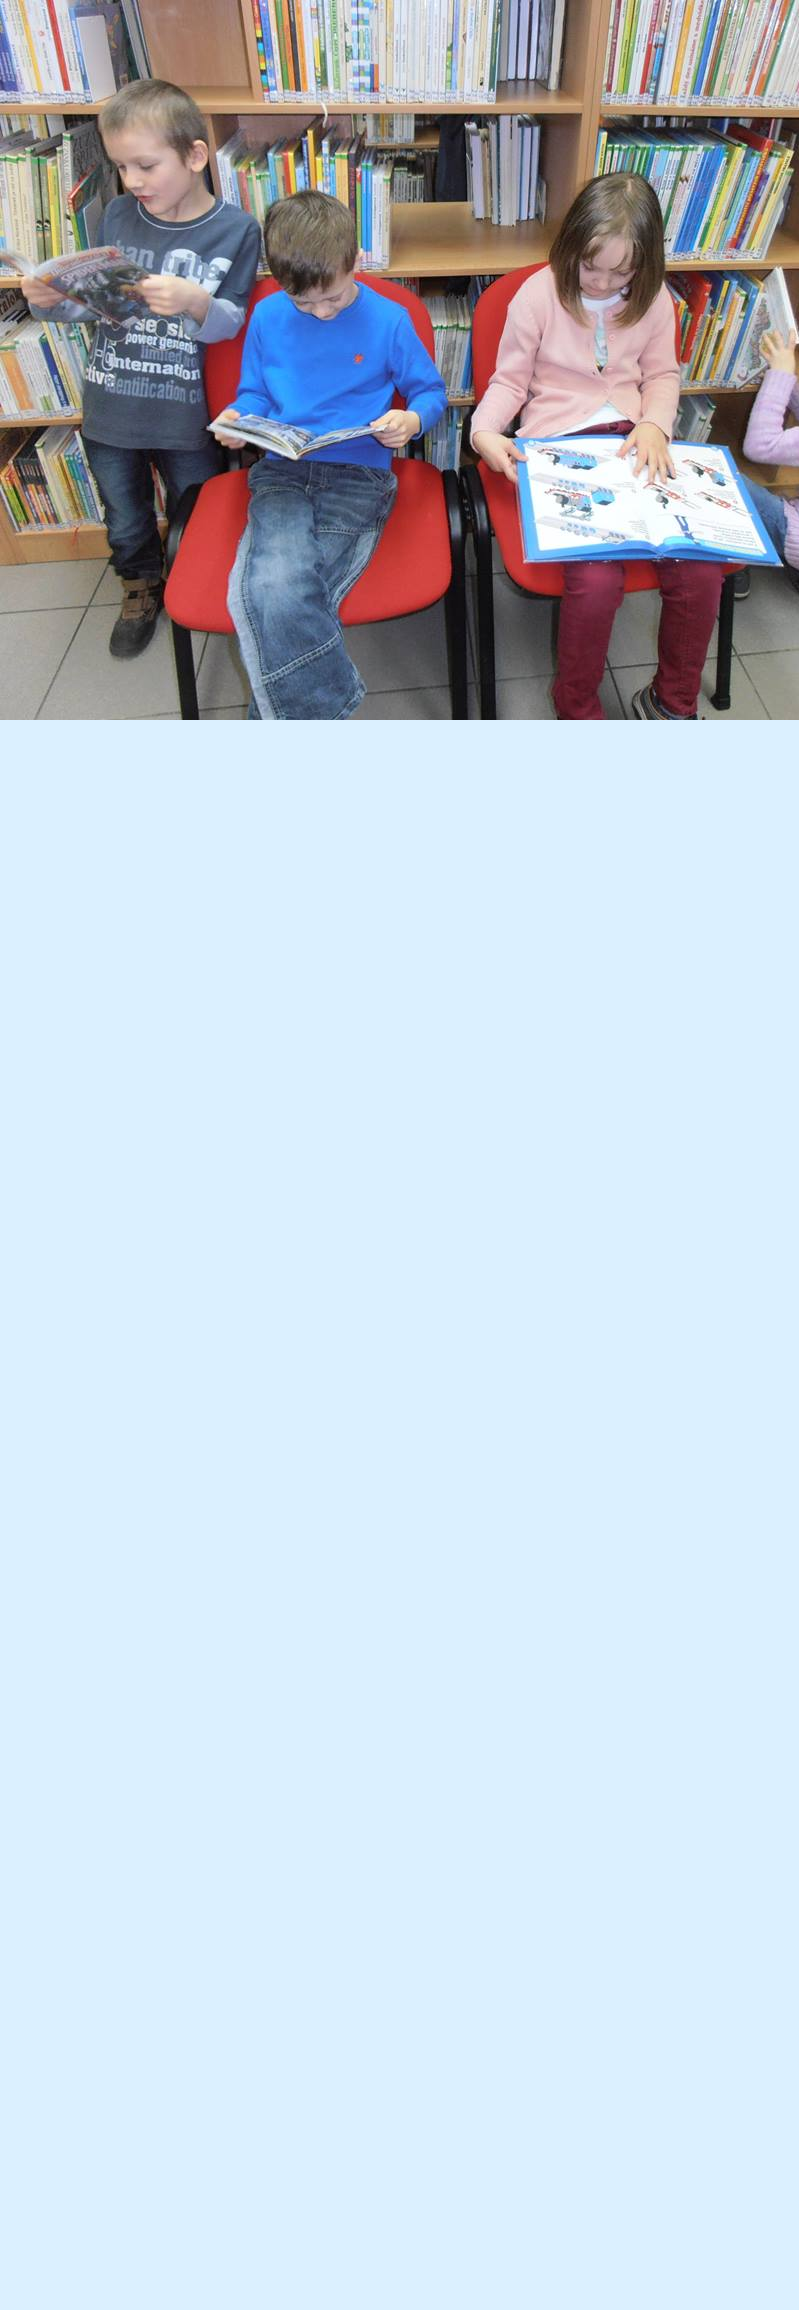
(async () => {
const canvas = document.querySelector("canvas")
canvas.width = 799
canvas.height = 2310
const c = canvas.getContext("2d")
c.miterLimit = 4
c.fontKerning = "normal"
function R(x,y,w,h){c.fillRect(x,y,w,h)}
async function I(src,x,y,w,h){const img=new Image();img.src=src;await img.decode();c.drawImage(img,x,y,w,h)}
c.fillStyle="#dbf0ff"
R(0,0,799,2310)
await I("1.png",0,0,799,720)
})()
